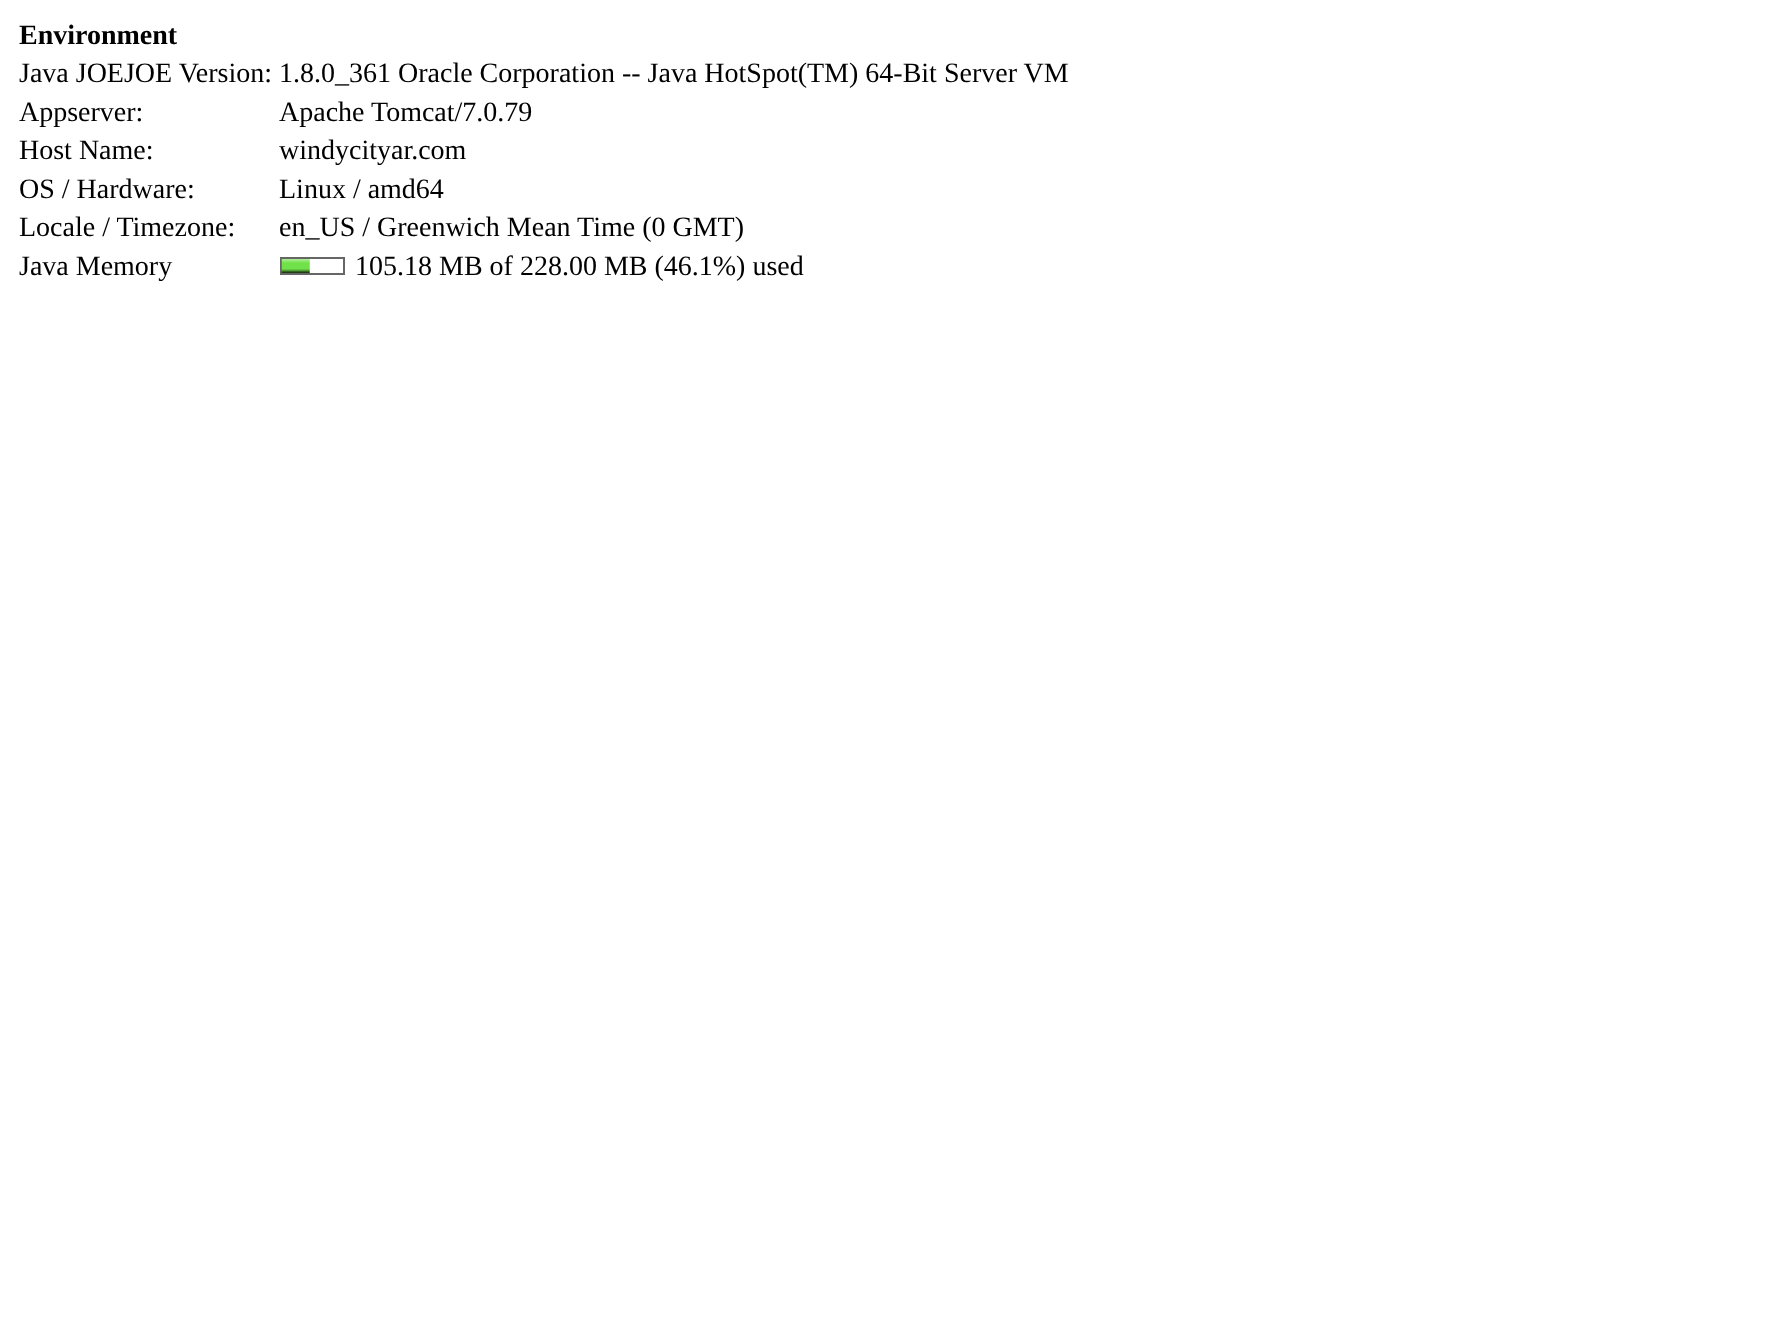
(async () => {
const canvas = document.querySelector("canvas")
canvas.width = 1766
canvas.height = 1322
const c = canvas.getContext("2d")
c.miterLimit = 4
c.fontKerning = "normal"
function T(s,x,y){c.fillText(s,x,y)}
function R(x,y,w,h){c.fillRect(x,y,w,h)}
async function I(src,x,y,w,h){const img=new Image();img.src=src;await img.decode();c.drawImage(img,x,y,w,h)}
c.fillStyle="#fff"
R(0,0,1766,1322)
c.font="bold 28px Liberation Serif"
c.fillStyle="#000"
T("Environment",19,44)
c.font="28px Liberation Serif"
T("Java JOEJOE Version: 1.8.0_361 Oracle Corporation -- Java HotSpot(TM) 64-Bit Server VM",19,82)
T("Appserver:",19,121)
T("Apache Tomcat/7.0.79",279,121)
T("Host Name:",19,159)
T("windycityar.com",279,159)
T("OS / Hardware:",19,198)
T("Linux / amd64",279,198)
T("Locale / Timezone:",19,236)
T("en_US / Greenwich Mean Time (0 GMT)",279,236)
T("Java Memory",19,275)
c.strokeStyle="#666"
c.lineWidth=2
c.strokeRect(281,258,63,16)
await I("1.png",281,259,29,14)
T("105.18 MB of 228.00 MB (46.1%) used",355,275)
})()
